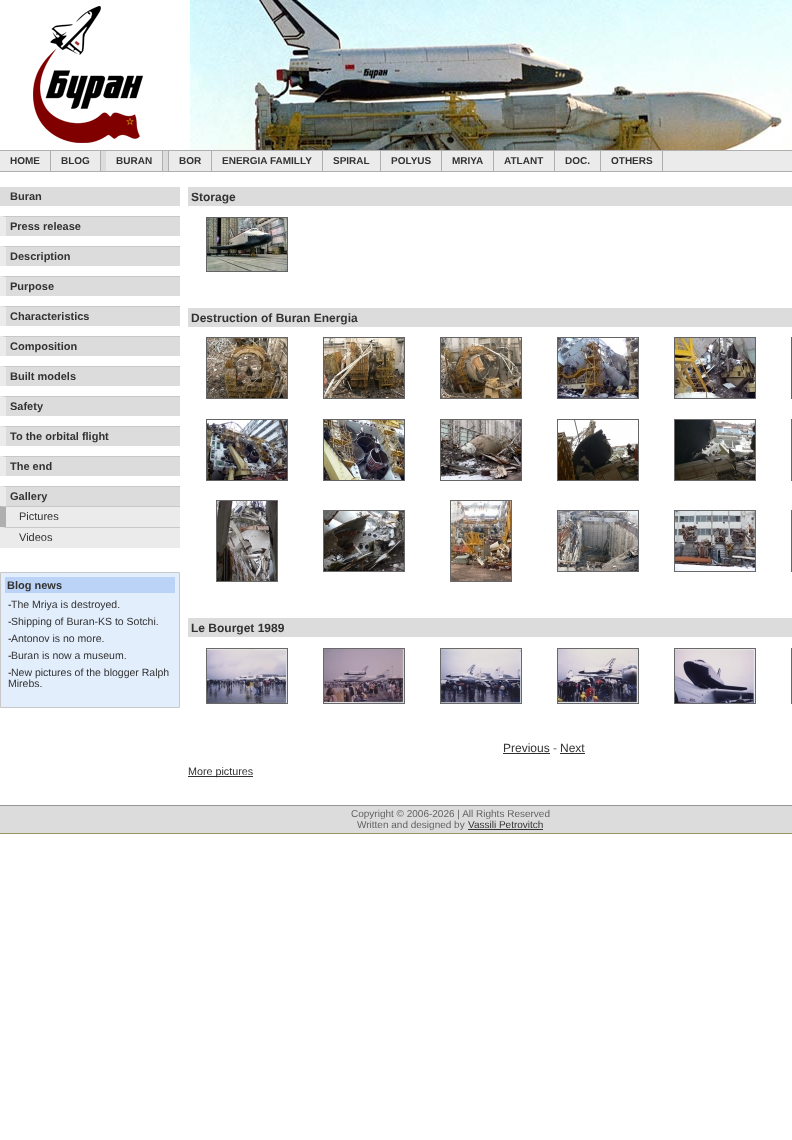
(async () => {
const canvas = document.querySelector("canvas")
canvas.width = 792
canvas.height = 1140
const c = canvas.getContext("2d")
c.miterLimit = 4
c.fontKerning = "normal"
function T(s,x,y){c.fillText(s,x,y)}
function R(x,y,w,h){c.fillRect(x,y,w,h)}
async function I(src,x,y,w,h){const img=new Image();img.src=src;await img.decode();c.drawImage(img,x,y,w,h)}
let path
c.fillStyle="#fff"
R(0,0,792,1140)
await I("1.png",33,6,110,137)
await I("2.png",190,0,602,150)
c.fillStyle="#ebebeb"
R(0,151,792,20)
c.fillStyle="#afafaf"
R(0,150,792,1)
R(0,171,792,1)
R(50,151,1,20)
c.font="bold 10px Liberation Sans"
c.fillStyle="#323232"
T("HOME",10,164)
c.fillStyle="#afafaf"
R(100,151,1,20)
c.fillStyle="#323232"
T("BLOG",61,164)
c.fillStyle="#dcdcdc"
R(101,151,67,20)
c.fillStyle="#afafaf"
R(168,151,1,20)
c.fillStyle="#ebebeb"
R(106,151,56,20)
c.fillStyle="#afafaf"
R(162,151,1,20)
c.fillStyle="#323232"
T("BURAN",116,164)
c.fillStyle="#afafaf"
R(211,151,1,20)
c.fillStyle="#323232"
T("BOR",179,164)
c.fillStyle="#afafaf"
R(322,151,1,20)
c.fillStyle="#323232"
T("ENERGIA FAMILLY",222,164)
c.fillStyle="#afafaf"
R(380,151,1,20)
c.fillStyle="#323232"
T("SPIRAL",333,164)
c.fillStyle="#afafaf"
R(441,151,1,20)
c.fillStyle="#323232"
T("POLYUS",391,164)
c.fillStyle="#afafaf"
R(493,151,1,20)
c.fillStyle="#323232"
T("MRIYA",452,164)
c.fillStyle="#afafaf"
R(554,151,1,20)
c.fillStyle="#323232"
T("ATLANT",504,164)
c.fillStyle="#afafaf"
R(600,151,1,20)
c.fillStyle="#323232"
T("DOC.",565,164)
c.fillStyle="#afafaf"
R(662,151,1,20)
c.fillStyle="#323232"
T("OTHERS",611,164)
c.fillStyle="#dcdcdc"
R(0,187,180,19)
c.font="bold 11px Liberation Sans"
c.fillStyle="#323232"
T("Buran",10,200)
c.fillStyle="#dcdcdc"
R(0,216,180,20)
c.fillStyle="#c8c8c8"
path = new Path2D("M0 216h180v1h-174z")
c.fill(path)
c.fillStyle="#ebebeb"
path = new Path2D("M0 236v-20l6 1v19z")
c.fill(path)
c.fillStyle="#323232"
T("Press release",10,230)
c.fillStyle="#dcdcdc"
R(0,246,180,20)
c.fillStyle="#c8c8c8"
path = new Path2D("M0 246h180v1h-174z")
c.fill(path)
c.fillStyle="#ebebeb"
path = new Path2D("M0 266v-20l6 1v19z")
c.fill(path)
c.fillStyle="#323232"
T("Description",10,260)
c.fillStyle="#dcdcdc"
R(0,276,180,20)
c.fillStyle="#c8c8c8"
path = new Path2D("M0 276h180v1h-174z")
c.fill(path)
c.fillStyle="#ebebeb"
path = new Path2D("M0 296v-20l6 1v19z")
c.fill(path)
c.fillStyle="#323232"
T("Purpose",10,290)
c.fillStyle="#dcdcdc"
R(0,306,180,20)
c.fillStyle="#c8c8c8"
path = new Path2D("M0 306h180v1h-174z")
c.fill(path)
c.fillStyle="#ebebeb"
path = new Path2D("M0 326v-20l6 1v19z")
c.fill(path)
c.fillStyle="#323232"
T("Characteristics",10,320)
c.fillStyle="#dcdcdc"
R(0,336,180,20)
c.fillStyle="#c8c8c8"
path = new Path2D("M0 336h180v1h-174z")
c.fill(path)
c.fillStyle="#ebebeb"
path = new Path2D("M0 356v-20l6 1v19z")
c.fill(path)
c.fillStyle="#323232"
T("Composition",10,350)
c.fillStyle="#dcdcdc"
R(0,366,180,20)
c.fillStyle="#c8c8c8"
path = new Path2D("M0 366h180v1h-174z")
c.fill(path)
c.fillStyle="#ebebeb"
path = new Path2D("M0 386v-20l6 1v19z")
c.fill(path)
c.fillStyle="#323232"
T("Built models",10,380)
c.fillStyle="#dcdcdc"
R(0,396,180,20)
c.fillStyle="#c8c8c8"
path = new Path2D("M0 396h180v1h-174z")
c.fill(path)
c.fillStyle="#ebebeb"
path = new Path2D("M0 416v-20l6 1v19z")
c.fill(path)
c.fillStyle="#323232"
T("Safety",10,410)
c.fillStyle="#dcdcdc"
R(0,426,180,20)
c.fillStyle="#c8c8c8"
path = new Path2D("M0 426h180v1h-174z")
c.fill(path)
c.fillStyle="#ebebeb"
path = new Path2D("M0 446v-20l6 1v19z")
c.fill(path)
c.fillStyle="#323232"
T("To the orbital flight",10,440)
c.fillStyle="#dcdcdc"
R(0,456,180,20)
c.fillStyle="#c8c8c8"
path = new Path2D("M0 456h180v1h-174z")
c.fill(path)
c.fillStyle="#ebebeb"
path = new Path2D("M0 476v-20l6 1v19z")
c.fill(path)
c.fillStyle="#323232"
T("The end",10,470)
c.fillStyle="#dcdcdc"
R(0,486,180,20)
c.fillStyle="#c8c8c8"
path = new Path2D("M0 486h180v1h-174z")
c.fill(path)
c.fillStyle="#ebebeb"
path = new Path2D("M0 506v-20l6 1v19z")
c.fill(path)
c.fillStyle="#323232"
T("Gallery",10,500)
c.fillStyle="#ebebeb"
R(0,506,180,42)
c.fillStyle="#c8c8c8"
path = new Path2D("M0 506h180v1h-174z")
c.fill(path)
c.fillStyle="#afafaf"
path = new Path2D("M0 527v-21l6 1v20z")
c.fill(path)
c.font="11px Liberation Sans"
c.fillStyle="#323232"
T("Pictures",19,520)
c.fillStyle="#c8c8c8"
path = new Path2D("M0 527h180v1h-174z")
c.fill(path)
c.fillStyle="#ebebeb"
path = new Path2D("M0 548v-21l6 1v20z")
c.fill(path)
c.fillStyle="#323232"
T("Videos",19,541)
c.fillStyle="#e2eefc"
c.beginPath()
c.rect(.5,572.5,179,135)
c.fill()
c.strokeStyle="#c8c8c8"
c.stroke()
c.fillStyle="#bbd3f7"
R(5,577,170,16)
c.font="bold 11px Liberation Sans"
c.fillStyle="#323232"
T("Blog news",7,589)
c.font="10.5px Liberation Sans"
c.fillStyle="#000"
T("-",8,608)
c.fillStyle="#323232"
T("The Mriya is destroyed.",11,608)
c.fillStyle="#000"
T("-",8,625)
c.fillStyle="#323232"
T("Shipping of Buran-KS to Sotchi.",11,625)
c.fillStyle="#000"
T("-",8,642)
c.fillStyle="#323232"
T("Antonov is no more.",11,642)
c.fillStyle="#000"
T("-",8,659)
c.fillStyle="#323232"
T("Buran is now a museum.",11,659)
c.fillStyle="#000"
T("-",8,676)
c.fillStyle="#323232"
T("New pictures of the blogger Ralph",11,676)
T("Mirebs.",8,687)
c.fillStyle="#dcdcdc"
R(188,187,604,19)
c.font="bold 12px Liberation Sans"
c.fillStyle="#323232"
T("Storage",191,201)
c.strokeStyle="#646464"
c.strokeRect(206.5,217.5,81,54)
await I("3.png",207,218,80,53)
c.fillStyle="#dcdcdc"
R(188,308,604,19)
c.fillStyle="#323232"
T("Destruction of Buran Energia",191,322)
c.strokeRect(206.5,337.5,81,61)
await I("4.png",207,338,80,60)
c.strokeRect(323.5,337.5,81,61)
await I("5.png",324,338,80,60)
c.strokeRect(440.5,337.5,81,61)
await I("6.png",441,338,80,60)
c.strokeRect(557.5,337.5,81,61)
await I("7.png",558,338,80,60)
c.strokeRect(674.5,337.5,81,61)
await I("8.png",675,338,80,60)
c.strokeRect(791.5,337.5,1,61)
c.strokeRect(206.5,419.5,81,61)
await I("9.png",207,420,80,60)
c.strokeRect(323.5,419.5,81,61)
await I("10.png",324,420,80,60)
c.strokeStyle="#656565"
c.strokeRect(440.5,419.5,81,61)
await I("11.png",441,420,80,60)
c.strokeStyle="#666"
c.strokeRect(557.5,419.5,81,61)
await I("12.png",558,420,80,60)
c.strokeStyle="#696969"
c.strokeRect(674.5,419.5,81,61)
await I("13.png",675,420,80,60)
c.strokeRect(791.5,419.5,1,61)
c.strokeRect(216.5,500.5,61,81)
await I("14.png",217,501,60,80)
c.strokeRect(323.5,510.5,81,61)
await I("15.png",324,511,80,60)
c.strokeRect(450.5,500.5,61,81)
await I("16.png",451,501,60,80)
c.strokeRect(557.5,510.5,81,61)
await I("17.png",558,511,80,60)
c.strokeRect(674.5,510.5,81,61)
await I("18.png",675,511,80,60)
c.strokeRect(791.5,510.5,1,61)
c.fillStyle="#dcdcdc"
R(188,618,604,19)
c.fillStyle="#323232"
T("Le Bourget 1989",191,632)
c.strokeRect(206.5,648.5,81,55)
await I("19.png",207,649,80,54)
c.strokeRect(323.5,648.5,81,55)
await I("20.png",324,649,80,54)
c.strokeRect(440.5,648.5,81,55)
await I("21.png",441,649,80,54)
c.strokeRect(557.5,648.5,81,55)
await I("22.png",558,649,80,54)
c.strokeRect(674.5,648.5,81,55)
await I("23.png",675,649,80,54)
c.strokeRect(791.5,648.5,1,55)
c.font="12px Liberation Sans"
T("Previous",503,752)
R(503,753,47,1)
c.fillStyle="#646464"
T("-",553,752)
c.fillStyle="#323232"
T("Next",560,752)
R(560,753,25,1)
R(188,776,65,1)
c.font="10.75px Liberation Sans"
T("More pictures",188,775)
c.fillStyle="#dcdcdc"
R(0,806,792,27)
c.fillStyle="#969696"
R(0,805,792,1)
c.fillStyle="#969664"
R(0,833,792,1)
c.font="10px Liberation Sans"
c.fillStyle="#646464"
T("Copyright © 2006-2026 | All Rights Reserved",351,817)
T("Written and designed by",357,828)
c.fillStyle="#323232"
T("Vassili Petrovitch",468,828)
R(468,829,75,1)
})()
